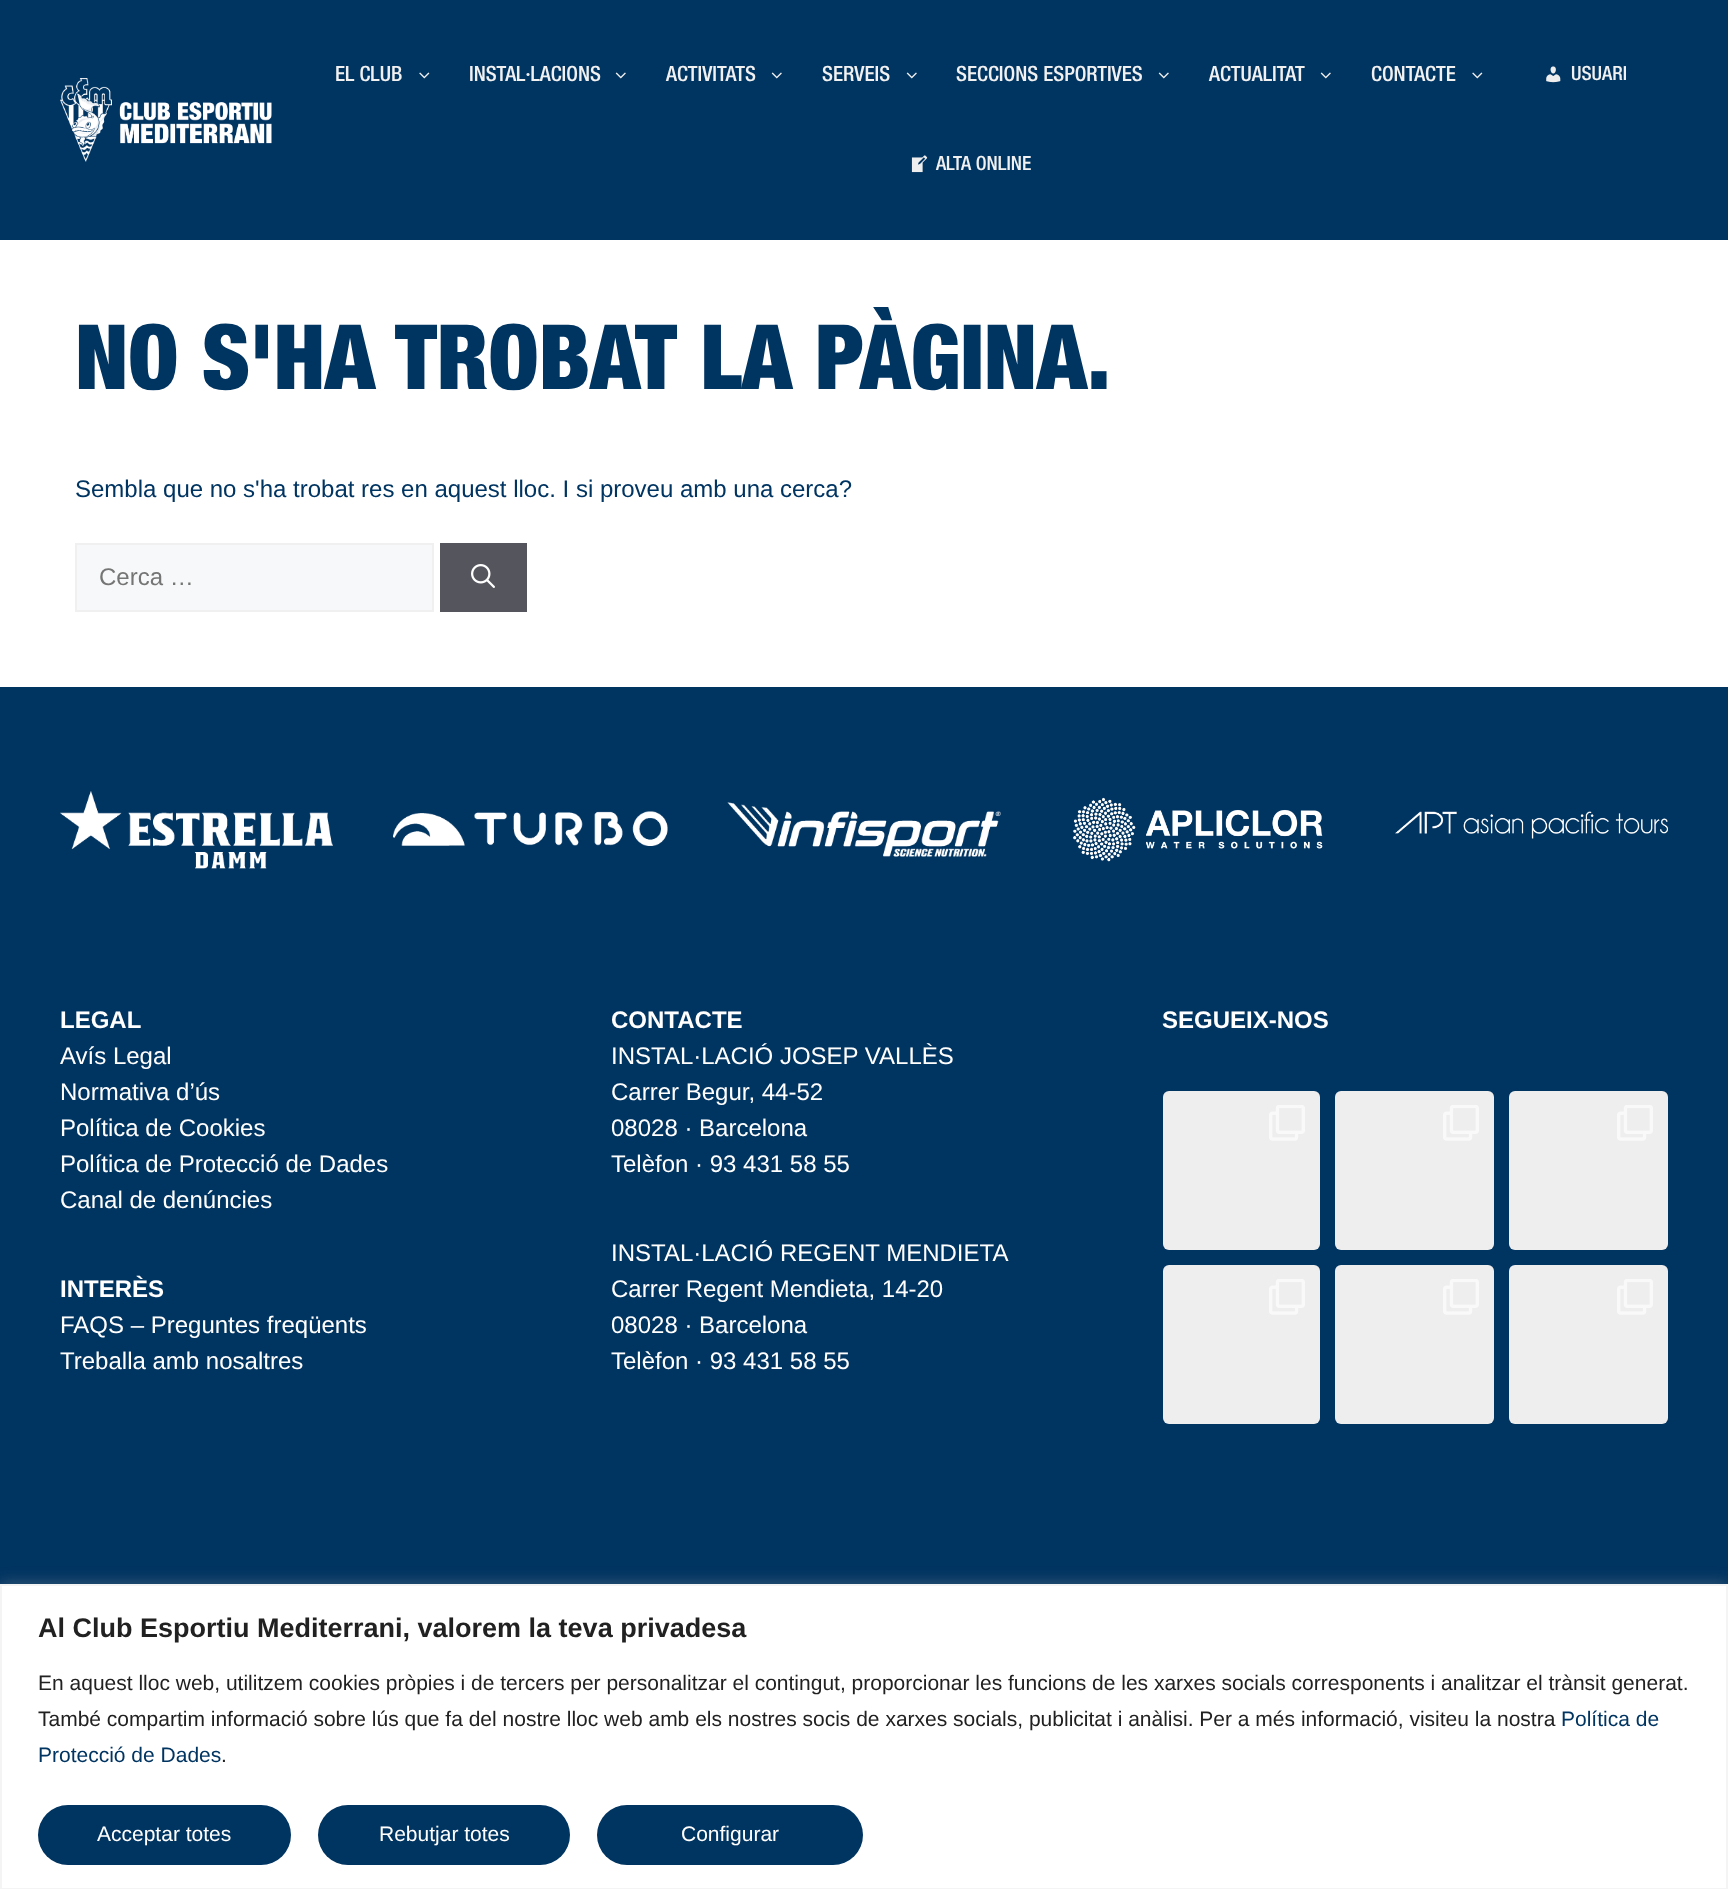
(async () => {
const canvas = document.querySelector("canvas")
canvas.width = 1728
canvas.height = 1889
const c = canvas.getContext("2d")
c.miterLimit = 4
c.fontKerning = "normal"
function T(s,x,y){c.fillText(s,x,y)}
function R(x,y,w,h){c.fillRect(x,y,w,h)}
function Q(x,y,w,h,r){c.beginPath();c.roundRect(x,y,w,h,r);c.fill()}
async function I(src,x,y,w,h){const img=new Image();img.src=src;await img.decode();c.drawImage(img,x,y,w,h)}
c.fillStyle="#fff"
R(0,0,1728,1889)
c.fillStyle="#003461"
R(0,0,1728,240)
await I("1.png",60,78,212,84)
c.font="500 21px Helvetica Neue"
c.fillStyle="#f1f1f1"
T("EL CLUB",335,81)
await I("2.png",419,72,11,7)
T("INSTAL·LACIONS",469,81)
await I("3.png",615,72,11,7)
T("ACTIVITATS",666,81)
await I("3.png",771,72,11,7)
T("SERVEIS",822,81)
await I("3.png",906,72,11,7)
T("SECCIONS ESPORTIVES",956,81)
await I("3.png",1158,72,11,7)
T("ACTUALITAT",1209,81)
await I("3.png",1320,72,11,7)
T("CONTACTE",1371,81)
await I("2.png",1472,72,11,7)
await I("4.png",1546,66,15,17)
c.font="500 19.5px Helvetica Neue"
T("USUARI",1571,80)
await I("5.png",911,155,17,18)
T("ALTA ONLINE",936,170)
c.font="900 90px Helvetica Neue"
c.fillStyle="#003461"
T("NO S'HA TROBAT LA PÀGINA.",75,389)
c.font="24px Liberation Sans"
T("Sembla que no s'ha trobat res en aquest lloc. I si proveu amb una cerca?",75,497)
c.fillStyle="#f7f8f9"
c.beginPath()
c.rect(76,544,357,67)
c.fill()
c.strokeStyle="#f0f0f0"
c.lineWidth=2
c.stroke()
c.fillStyle="#757575"
T("Cerca …",99,585)
c.fillStyle="#55555e"
R(440,543,87,69)
await I("6.png",471,564,24,24)
c.fillStyle="#003461"
R(0,687,1728,897)
await I("7.png",60,791,273,78)
await I("8.png",393,811,275,35)
await I("9.png",727,802,274,55)
await I("10.png",1073,797,250,65)
await I("11.png",1395,811,273,28)
c.font="bold 24px Liberation Sans"
c.fillStyle="#fff"
T("LEGAL",60,1028)
c.font="24px Liberation Sans"
T("Avís Legal",60,1064)
T("Normativa d’ús",60,1100)
T("Política de Cookies",60,1136)
T("Política de Protecció de Dades",60,1172)
T("Canal de denúncies",60,1208)
c.font="bold 24px Liberation Sans"
T("INTERÈS",60,1297)
c.font="24px Liberation Sans"
T("FAQS – Preguntes freqüents",60,1333)
T("Treballa amb nosaltres",60,1369)
c.font="bold 24px Liberation Sans"
T("CONTACTE",611,1028)
c.font="24px Liberation Sans"
T("INSTAL·LACIÓ JOSEP VALLÈS",611,1064)
T("Carrer Begur, 44-52",611,1100)
T("08028 · Barcelona",611,1136)
T("Telèfon · 93 431 58 55",611,1172)
T("INSTAL·LACIÓ REGENT MENDIETA",611,1261)
T("Carrer Regent Mendieta, 14-20",611,1297)
T("08028 · Barcelona",611,1333)
T("Telèfon · 93 431 58 55",611,1369)
c.font="bold 24px Liberation Sans"
T("SEGUEIX-NOS",1162,1028)
c.fillStyle="#eee"
Q(1163,1091,157,159,6)
await I("12.png",1269,1105,36,36)
Q(1335,1091,159,159,6)
await I("12.png",1443,1105,36,36)
Q(1509,1091,159,159,6)
await I("12.png",1617,1105,36,36)
Q(1163,1265,157,159,6)
await I("12.png",1269,1279,36,36)
Q(1335,1265,159,159,6)
await I("12.png",1443,1279,36,36)
Q(1509,1265,159,159,6)
await I("12.png",1617,1279,36,36)
c.fillStyle="#acabab4d"
c.filter="blur(7.5px)"
c.beginPath()
c.rect(0,1583,1728,306)
c.fill()
c.filter="none"
c.fillStyle="#fff"
c.beginPath()
c.rect(1,1585,1726,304)
c.fill()
c.strokeStyle="#f4f4f4"
c.stroke()
c.font="bold 27px Liberation Sans"
c.fillStyle="#212121"
T("Al Club Esportiu Mediterrani, valorem la teva privadesa",38,1637)
c.font="21px Liberation Sans"
T("En aquest lloc web, utilitzem cookies pròpies i de tercers per personalitzar el contingut, proporcionar les funcions de les xarxes socials corresponents i analitzar el trànsit generat.",38,1690)
T("També compartim informació sobre lús que fa del nostre lloc web amb els nostres socis de xarxes socials, publicitat i anàlisi. Per a més informació, visiteu la nostra",38,1726)
c.fillStyle="#003461"
T("Política de",1561,1726)
T("Protecció de Dades",38,1762)
c.fillStyle="#212121"
T(".",221,1762)
c.fillStyle="#003461"
Q(38,1805,253,60,30)
c.fillStyle="#fff"
T("Acceptar totes",97,1841)
c.fillStyle="#003461"
Q(318,1805,252,60,30)
c.fillStyle="#fff"
T("Rebutjar totes",379,1841)
c.fillStyle="#003461"
Q(597,1805,266,60,30)
c.fillStyle="#fff"
T("Configurar",681,1841)
})()
